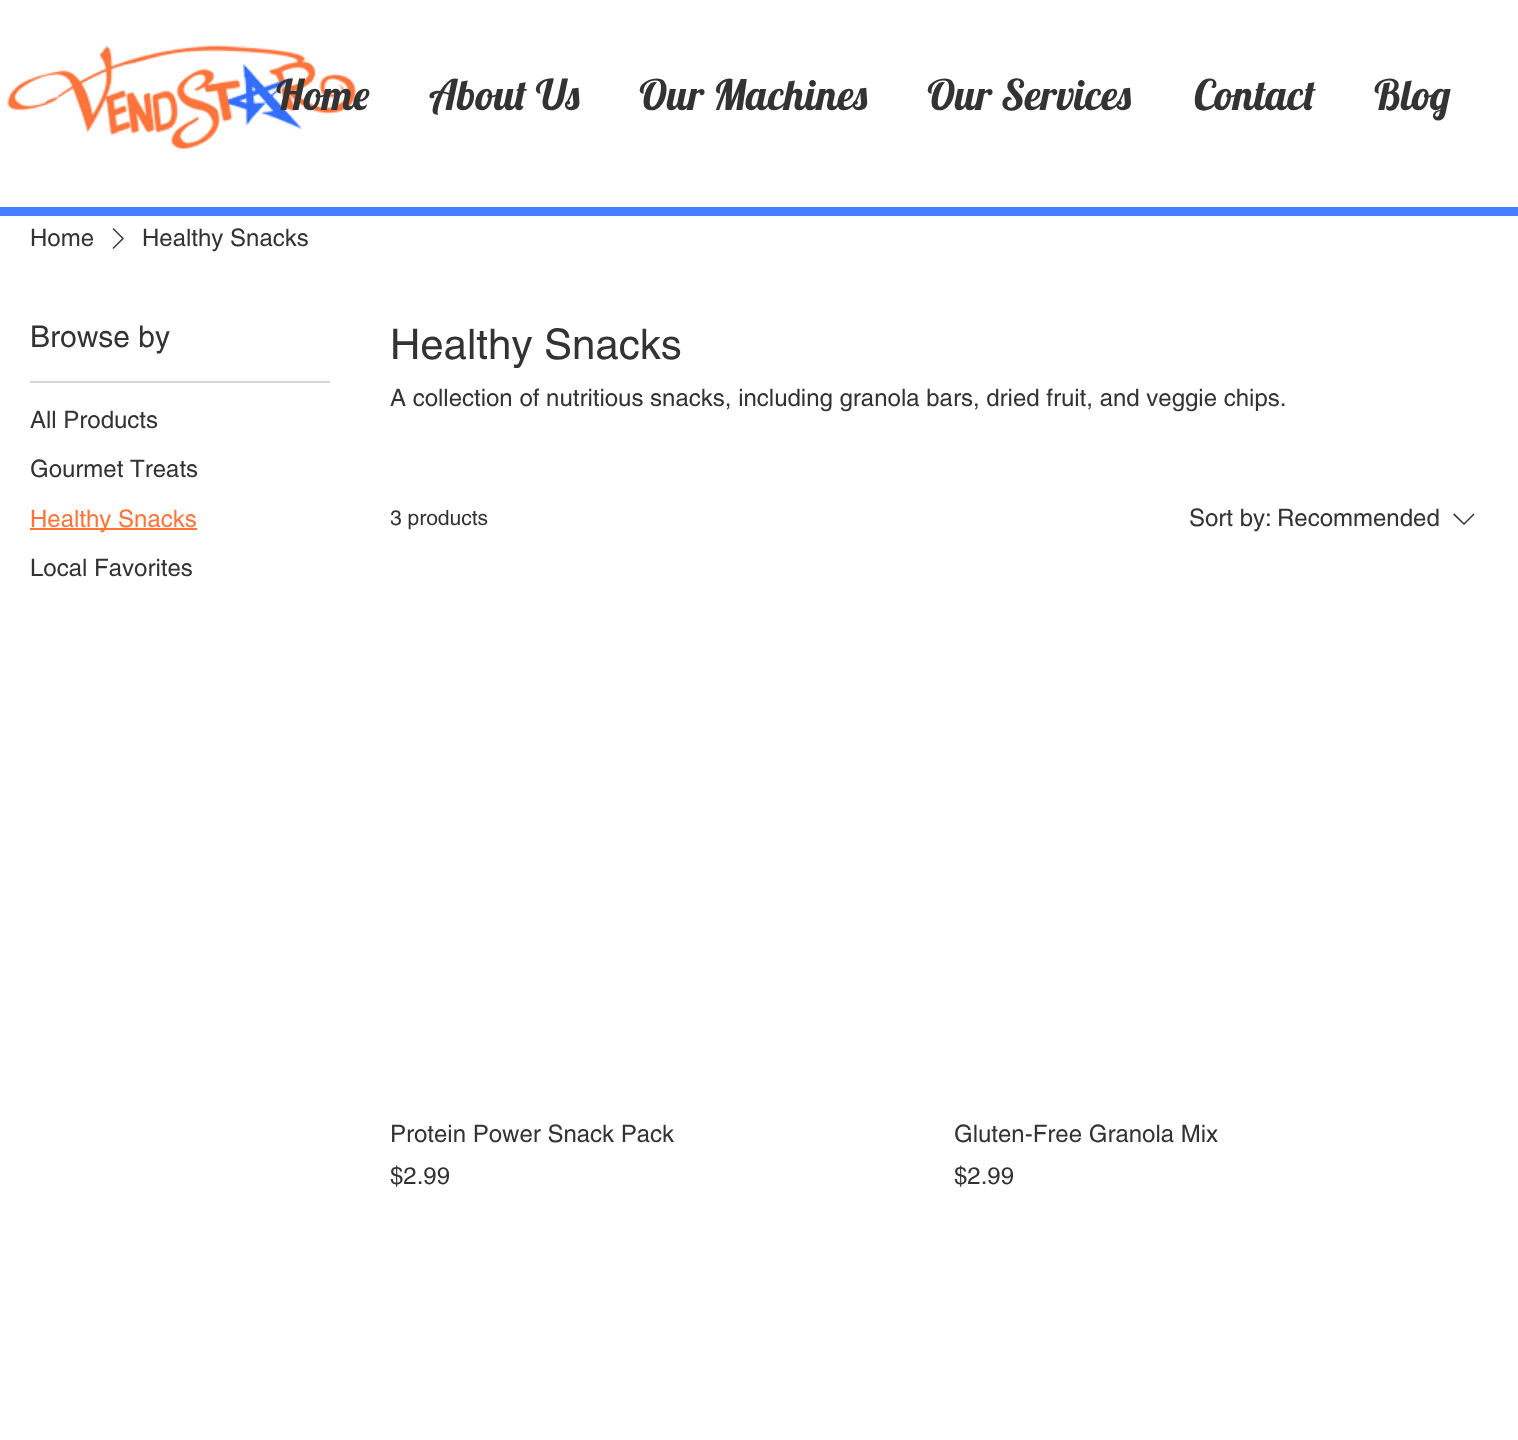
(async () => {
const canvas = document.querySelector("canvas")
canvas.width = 1518
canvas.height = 1440
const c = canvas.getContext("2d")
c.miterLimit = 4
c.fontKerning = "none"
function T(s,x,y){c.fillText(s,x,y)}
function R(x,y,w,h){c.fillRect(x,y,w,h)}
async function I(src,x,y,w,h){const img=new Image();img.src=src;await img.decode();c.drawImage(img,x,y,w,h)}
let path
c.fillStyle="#fff"
R(0,0,1518,1440)
await I("1.png",7,44,349,106)
c.font="42px Lobster"
c.fillStyle="#333"
T("Home",276,110)
T("About Us",429,110)
T("Our Machines",639,110)
T("Our Services",927,110)
T("Contact",1194,110)
T("Blog",1374,110)
c.fillStyle="#477dff"
R(0,207,1518,9)
c.font="24px helvetica"
c.fillStyle="#333"
T("Home",30,246)
path = new Path2D("M113.5 228l10.5 10.5l-10.5 10.5l-1-1l9.5-9.5l-9.5-9.5z")
c.fill(path,"evenodd")
T("Healthy Snacks",142,246)
c.fillStyle="#d6d6d6"
R(30,381,300,2)
c.font="30px helvetica"
c.fillStyle="#333"
T("Browse by",30,347)
c.font="24px helvetica"
T("All Products",30,428)
T("Gourmet Treats",30,477)
c.fillStyle="#ff743a"
R(30,528,167,2)
T("Healthy Snacks",30,527)
c.fillStyle="#333"
T("Local Favorites",30,576)
c.font="42px helvetica"
T("Healthy Snacks",390,359)
c.font="24px helvetica"
T("A collection of nutritious snacks, including granola bars, dried fruit, and veggie chips.",390,406)
c.font="21px helvetica"
T("3 products",390,525)
c.font="24px helvetica"
T("Sort by:",1189,526)
T("Recommended",1277,526)
path = new Path2D("M1473.5 513.5l1 1l-10.5 10.5l-11-10.5l1.5-1l9.5 9.5z")
c.fill(path,"evenodd")
T("Protein Power Snack Pack",390,1142)
T("$2.99",390,1184)
T("Gluten-Free Granola Mix",954,1142)
T("$2.99",954,1184)
})()
